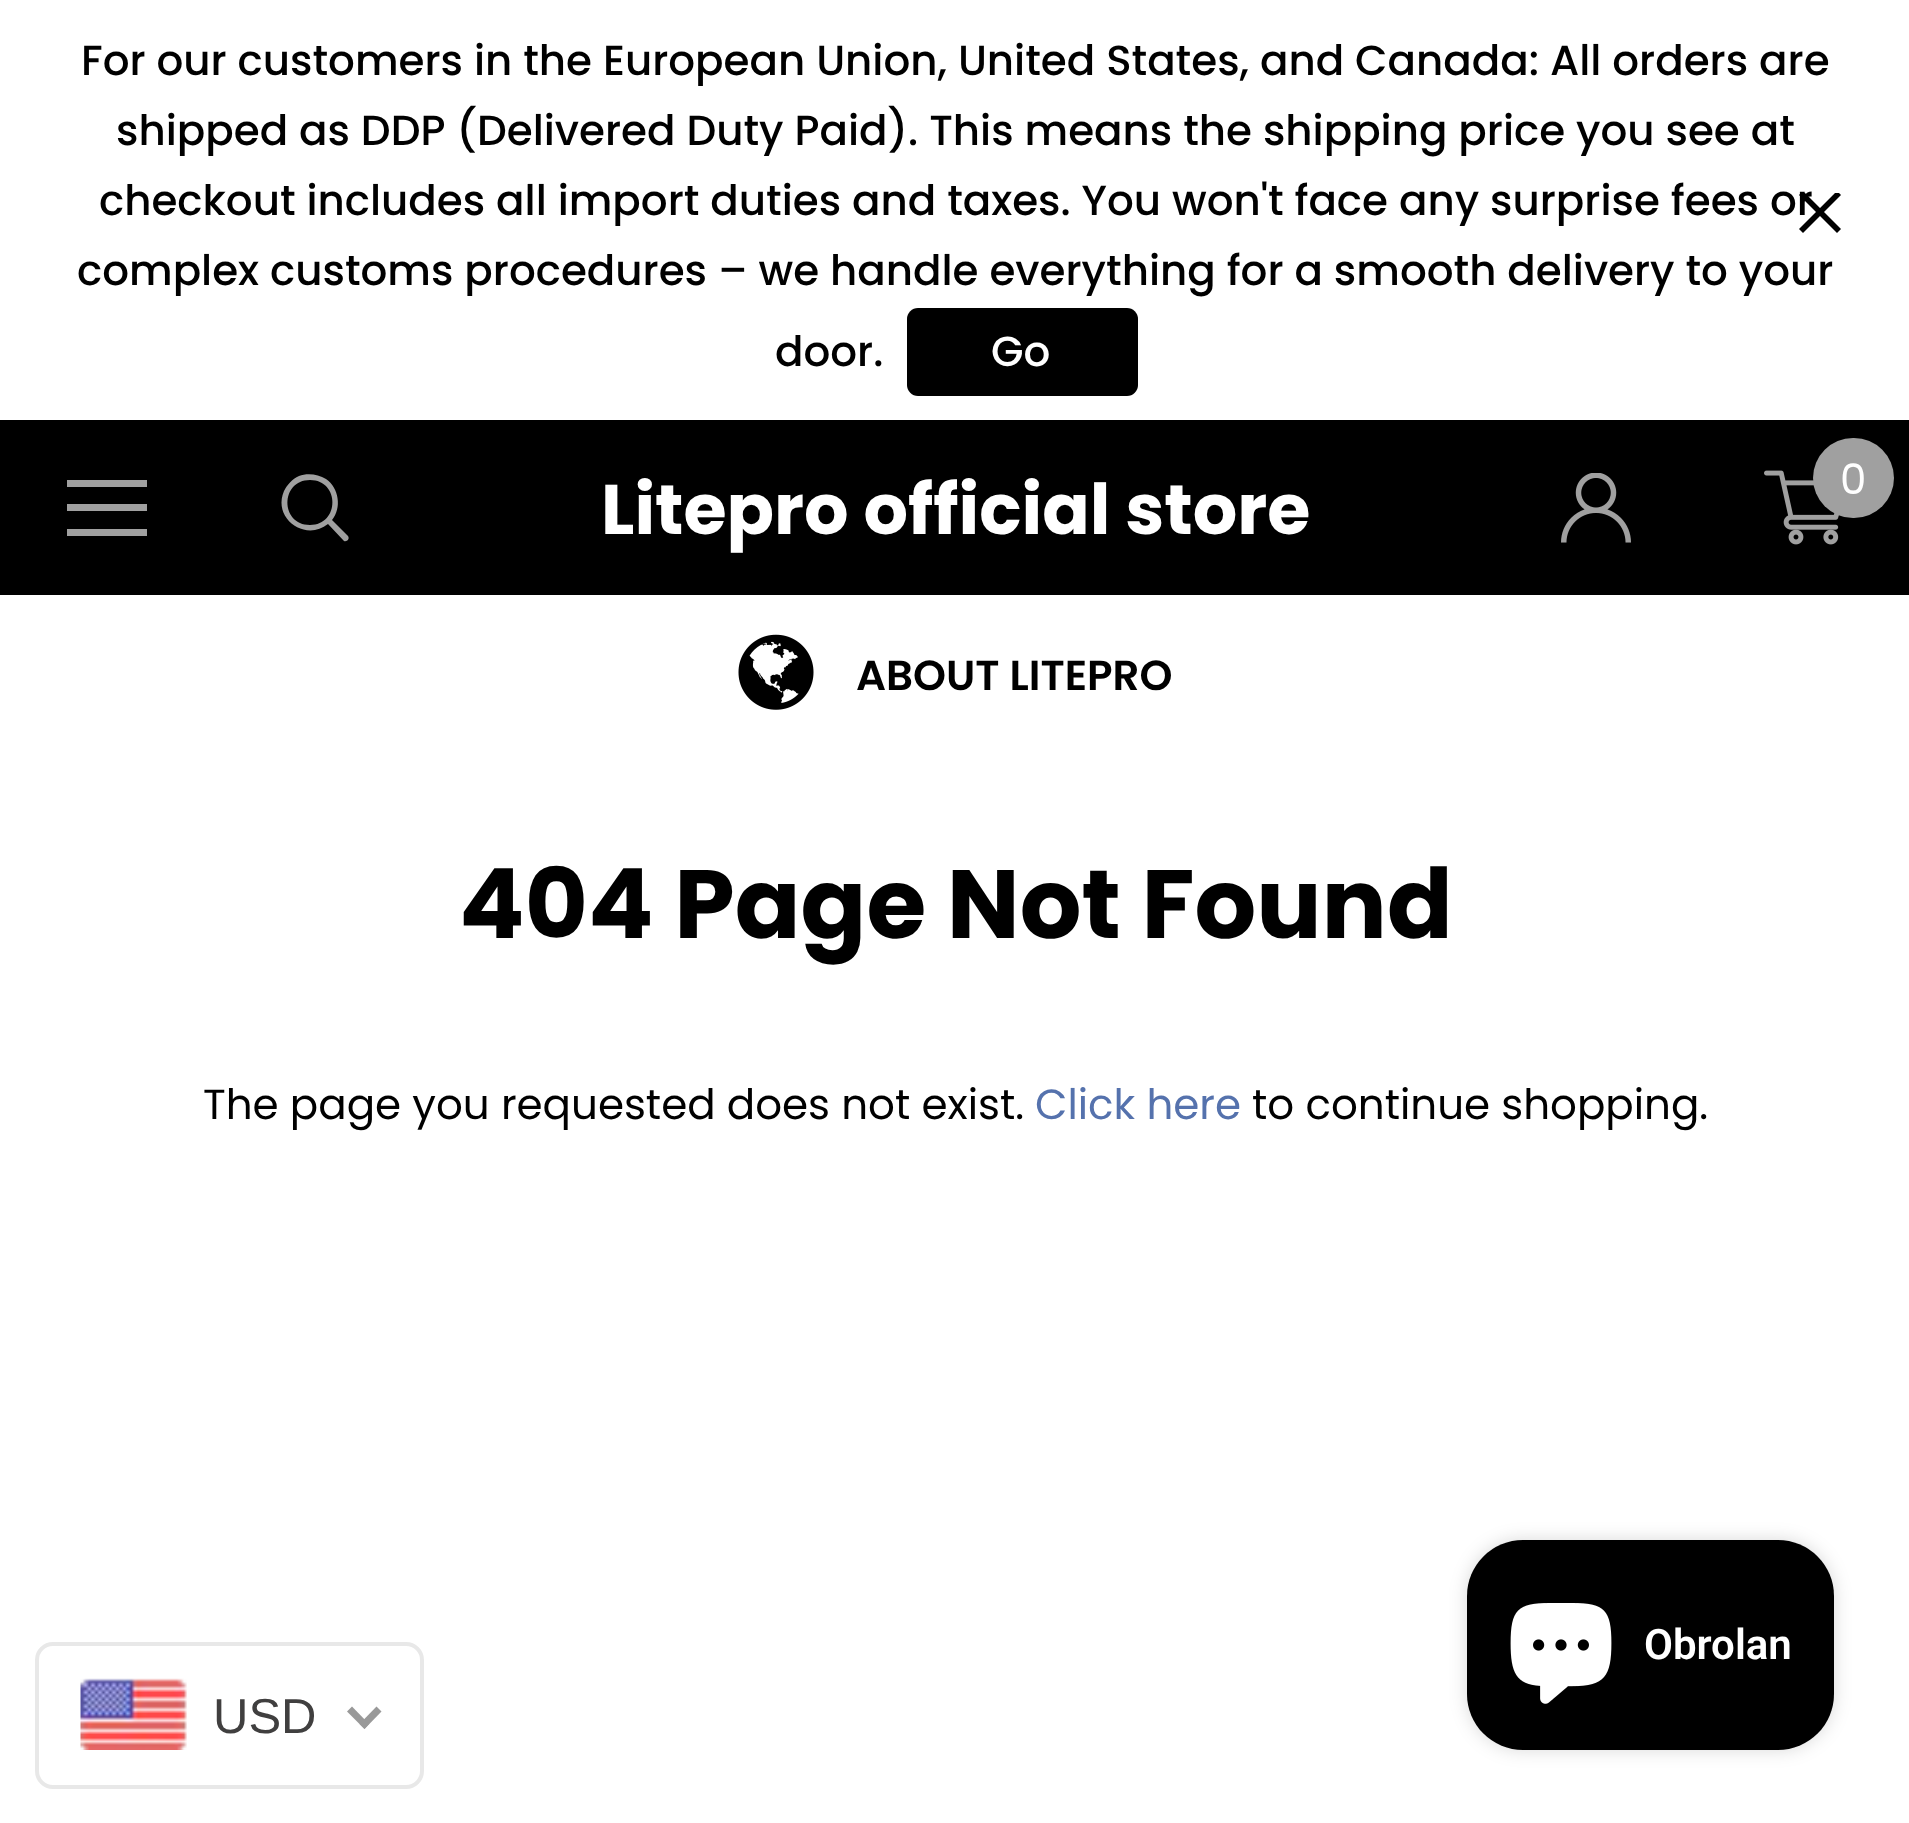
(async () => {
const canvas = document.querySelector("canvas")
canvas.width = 1909
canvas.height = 1823
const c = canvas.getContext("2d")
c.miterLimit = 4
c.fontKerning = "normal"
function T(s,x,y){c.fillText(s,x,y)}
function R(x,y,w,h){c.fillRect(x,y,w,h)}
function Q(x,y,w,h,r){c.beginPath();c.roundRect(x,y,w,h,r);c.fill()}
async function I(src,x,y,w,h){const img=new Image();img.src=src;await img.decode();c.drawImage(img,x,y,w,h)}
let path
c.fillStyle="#fff"
R(0,0,1909,1823)
c.font="500 42px Poppins"
c.fillStyle="#000"
T("For our customers in the European Union, United States, and Canada: All orders are",81,75)
T("shipped as DDP (Delivered Duty Paid). This means the shipping price you see at",116,145)
T("checkout includes all import duties and taxes. You won't face any surprise fees or",99,215)
T("complex customs procedures – we handle everything for a smooth delivery to your",77,285)
T("door.",775,366)
Q(907,308,231,88,11)
c.fillStyle="#fff"
T("Go",991,366)
c.save()
c.beginPath()
c.rect(1799,193,42,42)
c.clip()
c.fillStyle="#000"
path = new Path2D("M1841 195l-4-4l-17 17l-17-17l-4 4l17 17l-17 17l4 4l17-17l17 17l4-4l-17-17z")
c.fill(path)
c.restore()
c.fillStyle="#000"
R(0,420,1909,175)
c.fillStyle="#a0a0a0"
R(67,504,80,7)
R(67,480,80,7)
R(67,529,80,7)
path = new Path2D("M348 536l-16-16c10-12 7-32-6-41c-8-5-19-6-27-3c-7 3-12 9-15 15c-12 28 22 51 44 33l16 17c3 1 6-2 4-5zm-38-11c-30 0-30-45 0-45c30 0 30 45 0 45z")
c.fill(path)
c.font="bold 70px Poppins"
c.fillStyle="#fff"
T("Litepro official store",601,534)
await I("1.png",1561,473,70,70)
await I("2.png",1764,470,75,75)
c.fillStyle="#a0a0a0"
Q(1813,438,81,80,40)
c.font="42px Poppins"
c.fillStyle="#fff"
T("0",1840,494)
await I("3.png",738,634,76,76)
c.font="600 42px Poppins"
c.fillStyle="#000"
T("ABOUT LITEPRO",856,690)
c.font="bold 97px Poppins"
T("404 Page Not Found",459,938)
c.font="42px Poppins"
T("The page you requested does not exist.",203,1119)
c.fillStyle="#5572ad"
T("Click here",1035,1119)
c.fillStyle="#000"
T("to continue shopping.",1252,1119)
c.fillStyle="#00000026"
c.filter="blur(9px)"
c.beginPath()
c.roundRect(1467,1540,367,210,56)
c.fill()
c.filter="none"
c.fillStyle="#000"
Q(1467,1540,367,210,56)
await I("4.png",1510,1603,102,101)
c.font="600 42px Roboto"
c.fillStyle="#fff"
T("Obrolan",1644,1659)
c.beginPath()
c.roundRect(37,1644,385,143,16)
c.strokeStyle="#e8e8e8"
c.lineWidth=4
c.stroke()
await I("5.png",80,1678,107,72)
c.font="49px Liberation Sans"
c.fillStyle="#403f3f"
T("USD",213,1733)
c.fillStyle="#999"
path = new Path2D("M376.5 1706.5l5 5l-17 17.5l-5-5z")
c.fill(path)
path = new Path2D("M352 1706.5l17 17.5l-4.5 5l-17.5-17.5z")
c.fill(path)
})()
